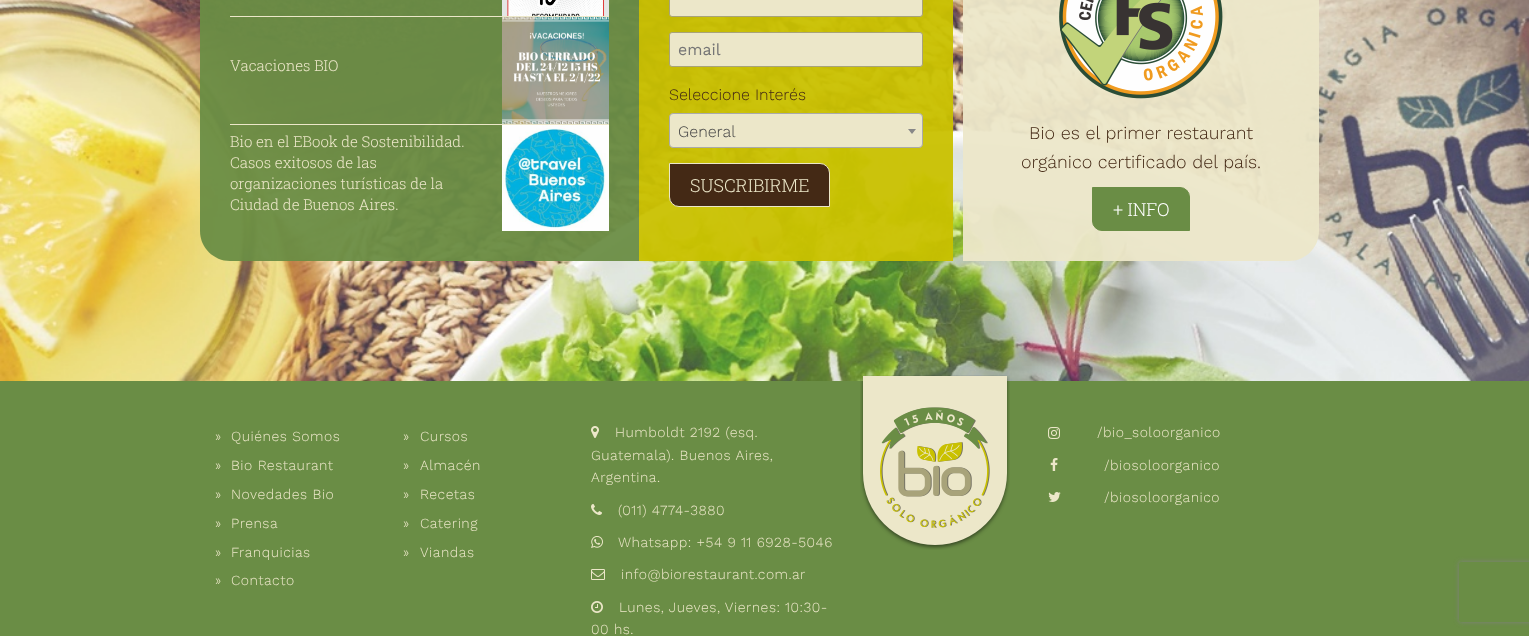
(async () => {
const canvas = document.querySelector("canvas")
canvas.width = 1529
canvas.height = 636
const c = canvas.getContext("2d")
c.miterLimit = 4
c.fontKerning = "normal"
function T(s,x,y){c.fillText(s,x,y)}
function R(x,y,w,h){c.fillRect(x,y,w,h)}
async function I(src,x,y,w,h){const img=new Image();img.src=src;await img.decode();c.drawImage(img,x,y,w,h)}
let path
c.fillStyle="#fff"
R(0,0,1529,636)
await I("1.png",0,0,1529,381)
c.fillStyle="#6a8d45f2"
path = new Path2D("M200-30h439v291h-409c-16.5 0-30-13.5-30-30z")
c.fill(path)
await I("2.png",502,0,107,16)
c.fillStyle="#ece7c9"
R(230,16,379,1)
c.font="300 15px Roboto Slab"
T("Vacaciones BIO",230,71)
await I("3.png",502,17,107,107)
R(230,124,379,1)
T("Bio en el EBook de Sostenibilidad.",230,147)
T("Casos exitosos de las",230,168)
T("organizaciones turísticas de la",230,189)
T("Ciudad de Buenos Aires.",230,210)
await I("4.png",502,125,107,106)
c.fillStyle="#c9c100f2"
R(639,0,314,261)
c.fillStyle="#ece7c9"
c.beginPath()
c.roundRect(669.5,-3.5,253,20,2.5)
c.fill()
c.strokeStyle="#a8a37a"
c.stroke()
c.beginPath()
c.roundRect(669.5,32.5,253,34,2.5)
c.fill()
c.stroke()
c.font="16px Work Sans"
c.fillStyle="#757575"
T("email",678,55)
c.font="300 16px Work Sans"
c.fillStyle="#442915"
T("Seleccione Interés",669,100)
c.fillStyle="#ece7c9"
c.beginPath()
c.roundRect(669.5,113.5,253,34,3.5)
c.fill()
c.strokeStyle="#aaa"
c.stroke()
c.fillStyle="#444"
T("General",678,137)
c.fillStyle="#888"
path = new Path2D("M908 129h8l-4 5z")
c.fill(path)
c.fillStyle="#442915"
c.beginPath()
c.roundRect(669.5,163.5,160,43,[0,9.5,0,9.5])
c.fill()
c.strokeStyle="#ece7c9"
c.stroke()
c.font="300 18px Roboto Slab"
c.fillStyle="#ece7c9"
T("SUSCRIBIRME",690,192)
c.fillStyle="#ece7c9f2"
path = new Path2D("M993-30h326v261c0 16.5-13.5 30-30 30h-326v-261c0-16.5 13.5-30 30-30z")
c.fill(path)
await I("5.png",1059,0,164,99)
c.font="300 18px Work Sans"
c.fillStyle="#442915"
T("Bio es el primer restaurant",1029,139)
T("orgánico certificado del país.",1021,168)
c.fillStyle="#6a8d45"
c.beginPath()
c.roundRect(1092.5,187.5,97,43,[0,9.5,0,9.5])
c.fill()
c.strokeStyle="#6a8d45"
c.stroke()
c.font="300 18px Roboto Slab"
c.fillStyle="#fff"
T("+ INFO",1113,216)
c.fillStyle="#6a8d45"
R(0,381,1529,255)
c.letterSpacing="0.5px"
c.font="300 14px Work Sans"
c.fillStyle="#ece7c9"
T("»",215,441)
T("Quiénes Somos",231,441)
T("»",215,470)
T("Bio Restaurant",231,470)
T("»",215,499)
T("Novedades Bio",231,499)
T("»",215,528)
T("Prensa",231,528)
T("»",215,557)
T("Franquicias",231,557)
T("»",215,585)
T("Contacto",231,585)
T("»",403,441)
T("Cursos",420,441)
T("»",403,470)
T("Almacén",420,470)
T("»",403,499)
T("Recetas",420,499)
T("»",403,528)
T("Catering",420,528)
T("»",403,557)
T("Viandas",420,557)
await I("6.png",591,426,8,12)
T("Humboldt 2192 (esq.",615,437)
T("Guatemala). Buenos Aires,",591,460)
T("Argentina.",591,482)
await I("7.png",591,504,11,11)
T("(011) 4774-3880",618,515)
await I("8.png",591,536,12,12)
T("Whatsapp: +54 9 11 6928-5046",618,547)
await I("9.png",591,569,14,11)
T("info@biorestaurant.com.ar",621,579)
await I("10.png",591,601,12,12)
T("Lunes, Jueves, Viernes: 10:30-",619,612)
T("00 hs.",591,634)
await I("11.png",860,375,150,175)
await I("12.png",1048,427,12,12)
T("/bio_soloorganico",1097,437)
await I("13.png",1050,458,8,13)
T("/biosoloorganico",1104,470)
await I("14.png",1048,492,13,10)
T("/biosoloorganico",1104,502)
c.save()
path = new Path2D("M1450 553h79v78h-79zm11 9h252c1 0 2 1 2 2v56c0 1-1 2-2 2h-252c-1 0-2-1-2-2v-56c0-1 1-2 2-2z")
c.clip(path,"evenodd")
c.fillStyle="#808080"
c.filter="blur(2.5px)"
c.beginPath()
c.roundRect(1459,562,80,60,2)
c.fill()
c.filter="none"
c.restore()
})()
